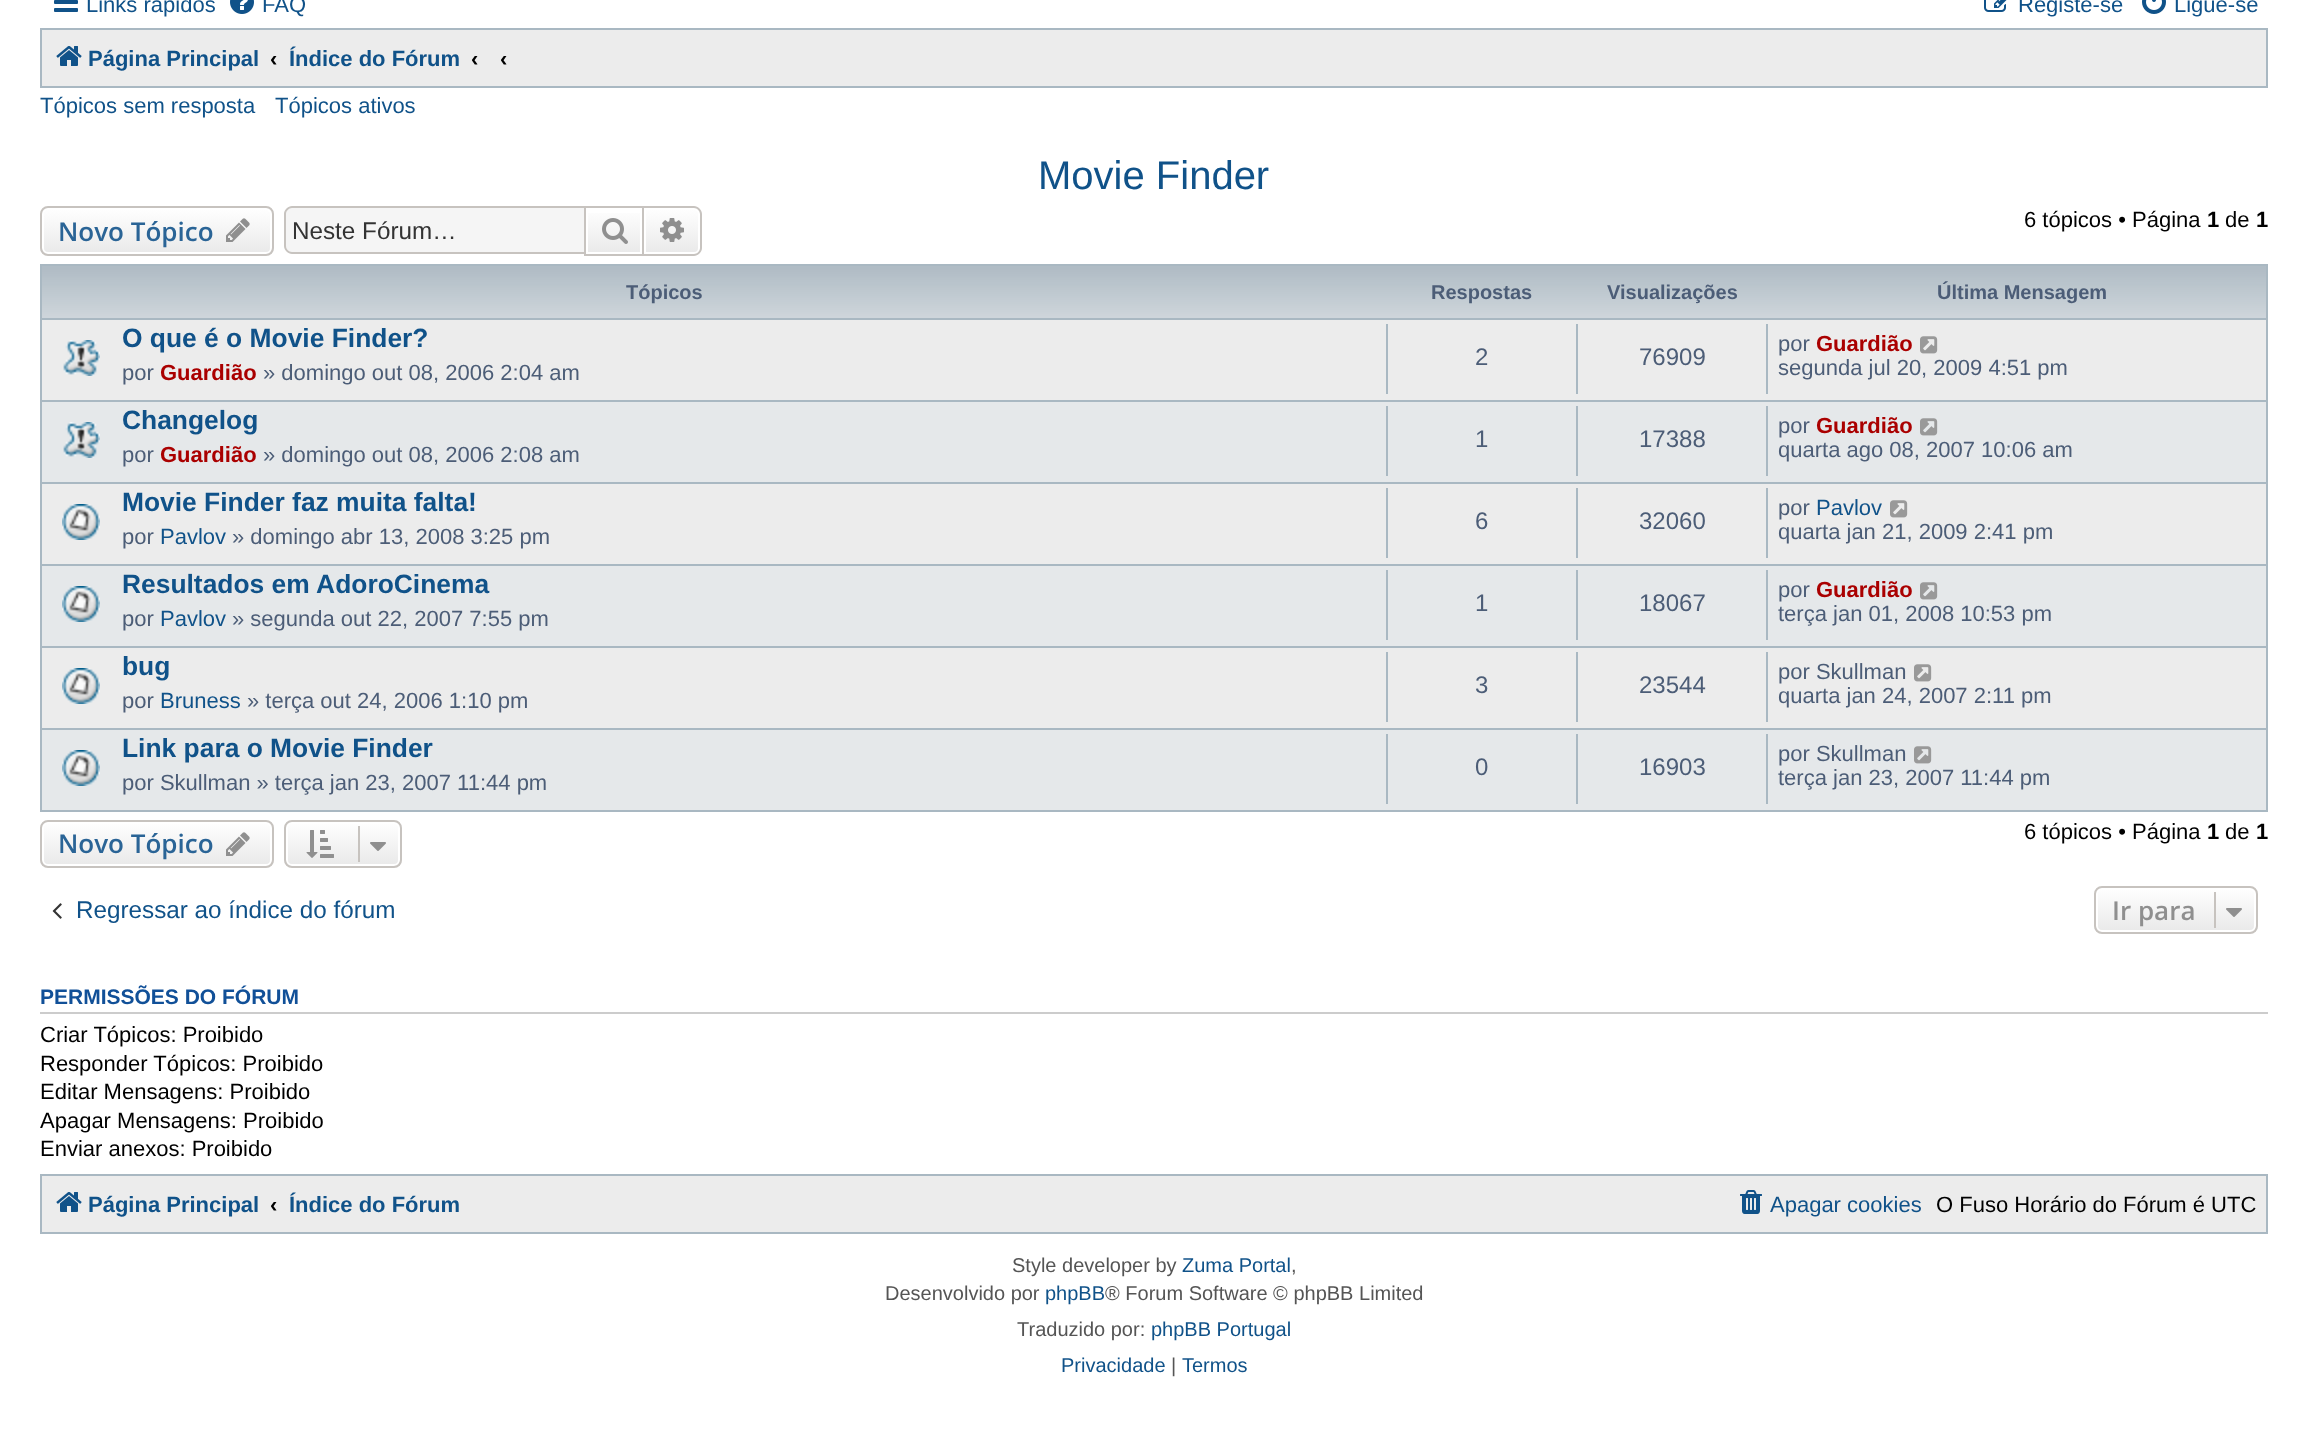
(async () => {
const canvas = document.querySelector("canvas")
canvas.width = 2307
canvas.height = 1444
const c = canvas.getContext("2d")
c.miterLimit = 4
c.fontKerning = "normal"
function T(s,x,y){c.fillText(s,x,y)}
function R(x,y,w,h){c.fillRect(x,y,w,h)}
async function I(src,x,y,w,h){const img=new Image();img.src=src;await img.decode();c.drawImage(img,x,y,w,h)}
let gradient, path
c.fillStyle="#fff"
R(0,0,2307,1444)
await I("1.png",54,0,24,12)
c.font="22px Liberation Sans"
c.fillStyle="#105289"
T("Links rápidos",86,12)
await I("2.png",230,0,24,14)
T("FAQ",262,12)
await I("3.png",1984,0,23,12)
T("Registe-se",2018,12)
await I("4.png",2142,0,24,14)
T("Ligue-se",2174,12)
c.fillStyle="#ececec"
c.beginPath()
c.rect(41,29,2226,58)
c.fill()
c.strokeStyle="#a9b8c2"
c.lineWidth=2
c.stroke()
await I("5.png",56,46,26,20)
c.font="bold 22px Liberation Sans"
c.fillStyle="#105289"
T("Página Principal",88,66)
c.fillStyle="#000"
T("‹",270,66)
c.fillStyle="#105289"
T("Índice do Fórum",289,66)
c.fillStyle="#000"
T("‹",471,66)
T("‹",500,66)
c.font="22px Liberation Sans"
c.fillStyle="#105289"
T("Tópicos sem resposta",40,113)
T("Tópicos ativos",275,113)
c.font="40px Liberation Sans"
T("Movie Finder",1038,189)
c.save()
c.beginPath()
c.roundRect(40,206,234,50,8)
c.clip()
gradient = c.createLinearGradient(157,208,157,254)
gradient.addColorStop(0,"#fff")
gradient.addColorStop(1,"#e9e9e9")
c.fillStyle = gradient
R(40,208,234,46)
c.restore()
c.beginPath()
c.roundRect(43,209,228,44,5)
c.strokeStyle="#fff"
c.stroke()
c.beginPath()
c.roundRect(41,207,232,48,7)
c.strokeStyle="#c7c3bf"
c.stroke()
c.font="600 26px Open Sans"
c.fillStyle="#2a6496"
T("Novo Tópico",58,241)
await I("6.png",226,218,24,24)
c.fillStyle="#f5f5f5"
c.beginPath()
c.roundRect(286,208,298,44,[6,0,0,6])
c.fill()
c.fillStyle="#c7c3bf"
path = new Path2D("M292 206h292v48h-292c-4 0-8-4-8-8v-32c0-4 4-8 8-8zm0 2h292v44h-292c-3 0-6-3-6-6v-32c0-3 3-6 6-6z")
c.fill(path,"evenodd")
c.font="24.25px Liberation Sans"
c.fillStyle="#333"
T("Neste Fórum…",292,239)
gradient = c.createLinearGradient(614,208,614,254)
gradient.addColorStop(0,"#fff")
gradient.addColorStop(1,"#e9e9e9")
c.fillStyle = gradient
R(588,213,52,39)
c.strokeRect(585,207,58,48)
await I("7.png",602,218,26,26)
gradient = c.createLinearGradient(672,208,672,254)
gradient.addColorStop(0,"#fff")
gradient.addColorStop(1,"#e9e9e9")
c.fillStyle = gradient
c.beginPath()
c.roundRect(645,209,54,44,[0,5,5,0])
c.fill()
c.strokeStyle="#fff"
c.stroke()
c.fillStyle="#c7c3bf"
path = new Path2D("M644 206h50c4 0 8 4 8 8v34c0 4-4 8-8 8h-50zm0 2h50c3 0 6 3 6 6v34c0 3-3 6-6 6h-50z")
c.fill(path,"evenodd")
await I("8.png",660,218,24,24)
c.font="22px Liberation Sans"
c.fillStyle="#000"
T("6 tópicos • Página",2024,227)
c.font="bold 22px Liberation Sans"
T("1",2207,227)
c.font="22px Liberation Sans"
T("de",2225,227)
c.font="bold 22px Liberation Sans"
T("1",2256,227)
c.fillStyle="#ececec"
R(42,484,2224,244)
await I("9.png",42,266,2224,52)
c.strokeStyle="#a9b8c2"
c.strokeRect(41,265,2226,546)
c.font="bold 20px Liberation Sans"
c.fillStyle="#4c5d77"
T("Tópicos",626,299)
T("Respostas",1431,299)
T("Visualizações",1607,299)
T("Última Mensagem",1937,299)
c.fillStyle="#ececec"
R(42,320,2224,80)
c.fillStyle="#a9b8c2"
R(42,318,2224,2)
await I("10.png",63,340,37,36)
c.font="bold 26.4px Liberation Sans"
c.fillStyle="#105289"
T("O que é o Movie Finder?",122,347)
c.font="22px Liberation Sans"
c.fillStyle="#4c5d77"
T("por",122,380)
c.font="bold 22px Liberation Sans"
c.fillStyle="#a00"
T("Guardião",160,380)
c.font="22px Liberation Sans"
c.fillStyle="#4c5d77"
T("» domingo out 08, 2006 2:04 am",263,380)
c.fillStyle="#a9b8c2"
R(1386,324,2,70)
c.font="24px Liberation Sans"
c.fillStyle="#4c5d77"
T("2",1475,365)
c.fillStyle="#a9b8c2"
R(1576,324,2,70)
c.fillStyle="#4c5d77"
T("76909",1639,365)
c.fillStyle="#a9b8c2"
R(1766,324,2,70)
c.font="22px Liberation Sans"
c.fillStyle="#4c5d77"
T("por",1778,351)
c.font="bold 22px Liberation Sans"
c.fillStyle="#a00"
T("Guardião",1816,351)
await I("11.png",1920,336,18,18)
c.font="22px Liberation Sans"
c.fillStyle="#4c5d77"
T("segunda jul 20, 2009 4:51 pm",1778,375)
c.fillStyle="#e5e8ea"
R(42,402,2224,80)
c.fillStyle="#a9b8c2"
R(42,400,2224,2)
await I("12.png",63,422,37,36)
c.font="bold 26.4px Liberation Sans"
c.fillStyle="#105289"
T("Changelog",122,429)
c.font="22px Liberation Sans"
c.fillStyle="#4c5d77"
T("por",122,462)
c.font="bold 22px Liberation Sans"
c.fillStyle="#a00"
T("Guardião",160,462)
c.font="22px Liberation Sans"
c.fillStyle="#4c5d77"
T("» domingo out 08, 2006 2:08 am",263,462)
c.fillStyle="#a9b8c2"
R(1386,406,2,70)
c.font="24px Liberation Sans"
c.fillStyle="#4c5d77"
T("1",1475,447)
c.fillStyle="#a9b8c2"
R(1576,406,2,70)
c.fillStyle="#4c5d77"
T("17388",1639,447)
c.fillStyle="#a9b8c2"
R(1766,406,2,70)
c.font="22px Liberation Sans"
c.fillStyle="#4c5d77"
T("por",1778,433)
c.font="bold 22px Liberation Sans"
c.fillStyle="#a00"
T("Guardião",1816,433)
await I("13.png",1920,418,18,18)
c.font="22px Liberation Sans"
c.fillStyle="#4c5d77"
T("quarta ago 08, 2007 10:06 am",1778,457)
c.fillStyle="#a9b8c2"
R(42,482,2224,2)
await I("14.png",62,504,38,36)
c.font="bold 26.4px Liberation Sans"
c.fillStyle="#105289"
T("Movie Finder faz muita falta!",122,511)
c.font="22px Liberation Sans"
c.fillStyle="#4c5d77"
T("por",122,544)
c.fillStyle="#105289"
T("Pavlov",160,544)
c.fillStyle="#4c5d77"
T("» domingo abr 13, 2008 3:25 pm",232,544)
c.fillStyle="#a9b8c2"
R(1386,488,2,70)
c.font="24px Liberation Sans"
c.fillStyle="#4c5d77"
T("6",1475,529)
c.fillStyle="#a9b8c2"
R(1576,488,2,70)
c.fillStyle="#4c5d77"
T("32060",1639,529)
c.fillStyle="#a9b8c2"
R(1766,488,2,70)
c.font="22px Liberation Sans"
c.fillStyle="#4c5d77"
T("por",1778,515)
c.fillStyle="#105289"
T("Pavlov",1816,515)
await I("11.png",1890,500,18,18)
c.fillStyle="#4c5d77"
T("quarta jan 21, 2009 2:41 pm",1778,539)
c.fillStyle="#e5e8ea"
R(42,566,2224,80)
c.fillStyle="#a9b8c2"
R(42,564,2224,2)
await I("15.png",62,586,38,36)
c.font="bold 26.4px Liberation Sans"
c.fillStyle="#105289"
T("Resultados em AdoroCinema",122,593)
c.font="22px Liberation Sans"
c.fillStyle="#4c5d77"
T("por",122,626)
c.fillStyle="#105289"
T("Pavlov",160,626)
c.fillStyle="#4c5d77"
T("» segunda out 22, 2007 7:55 pm",232,626)
c.fillStyle="#a9b8c2"
R(1386,570,2,70)
c.font="24px Liberation Sans"
c.fillStyle="#4c5d77"
T("1",1475,611)
c.fillStyle="#a9b8c2"
R(1576,570,2,70)
c.fillStyle="#4c5d77"
T("18067",1639,611)
c.fillStyle="#a9b8c2"
R(1766,570,2,70)
c.font="22px Liberation Sans"
c.fillStyle="#4c5d77"
T("por",1778,597)
c.font="bold 22px Liberation Sans"
c.fillStyle="#a00"
T("Guardião",1816,597)
await I("13.png",1920,582,18,18)
c.font="22px Liberation Sans"
c.fillStyle="#4c5d77"
T("terça jan 01, 2008 10:53 pm",1778,621)
c.fillStyle="#a9b8c2"
R(42,646,2224,2)
await I("14.png",62,668,38,36)
c.font="bold 26.4px Liberation Sans"
c.fillStyle="#105289"
T("bug",122,675)
c.font="22px Liberation Sans"
c.fillStyle="#4c5d77"
T("por",122,708)
c.fillStyle="#105289"
T("Bruness",160,708)
c.fillStyle="#4c5d77"
T("» terça out 24, 2006 1:10 pm",247,708)
c.fillStyle="#a9b8c2"
R(1386,652,2,70)
c.font="24px Liberation Sans"
c.fillStyle="#4c5d77"
T("3",1475,693)
c.fillStyle="#a9b8c2"
R(1576,652,2,70)
c.fillStyle="#4c5d77"
T("23544",1639,693)
c.fillStyle="#a9b8c2"
R(1766,652,2,70)
c.font="22px Liberation Sans"
c.fillStyle="#4c5d77"
T("por Skullman",1778,679)
await I("11.png",1914,664,18,18)
T("quarta jan 24, 2007 2:11 pm",1778,703)
c.fillStyle="#e5e8ea"
R(42,730,2224,80)
c.fillStyle="#a9b8c2"
R(42,728,2224,2)
await I("15.png",62,750,38,36)
c.font="bold 26.4px Liberation Sans"
c.fillStyle="#105289"
T("Link para o Movie Finder",122,757)
c.font="22px Liberation Sans"
c.fillStyle="#4c5d77"
T("por Skullman » terça jan 23, 2007 11:44 pm",122,790)
c.fillStyle="#a9b8c2"
R(1386,734,2,70)
c.font="24px Liberation Sans"
c.fillStyle="#4c5d77"
T("0",1475,775)
c.fillStyle="#a9b8c2"
R(1576,734,2,70)
c.fillStyle="#4c5d77"
T("16903",1639,775)
c.fillStyle="#a9b8c2"
R(1766,734,2,70)
c.font="22px Liberation Sans"
c.fillStyle="#4c5d77"
T("por Skullman",1778,761)
await I("13.png",1914,746,18,18)
T("terça jan 23, 2007 11:44 pm",1778,785)
c.save()
c.beginPath()
c.roundRect(40,820,234,48,8)
c.clip()
gradient = c.createLinearGradient(157,822,157,866)
gradient.addColorStop(0,"#fff")
gradient.addColorStop(1,"#e9e9e9")
c.fillStyle = gradient
R(40,822,234,44)
c.restore()
c.beginPath()
c.roundRect(43,823,228,42,5)
c.strokeStyle="#fff"
c.stroke()
c.beginPath()
c.roundRect(41,821,232,46,7)
c.strokeStyle="#c7c3bf"
c.stroke()
c.font="600 26px Open Sans"
c.fillStyle="#2a6496"
T("Novo Tópico",58,853)
await I("16.png",226,832,24,24)
c.save()
c.beginPath()
c.roundRect(284,820,118,48,8)
c.clip()
gradient = c.createLinearGradient(343,822,343,866)
gradient.addColorStop(0,"#fff")
gradient.addColorStop(1,"#e9e9e9")
c.fillStyle = gradient
R(284,822,118,44)
c.restore()
c.beginPath()
c.roundRect(287,823,112,42,5)
c.strokeStyle="#fff"
c.stroke()
c.beginPath()
c.roundRect(285,821,116,46,7)
c.strokeStyle="#c7c3bf"
c.stroke()
await I("17.png",306,830,28,28)
c.fillStyle="#c7c3bf"
R(358,826,2,36)
await I("18.png",370,842,16,9)
c.font="22px Liberation Sans"
c.fillStyle="#000"
T("6 tópicos • Página",2024,839)
c.font="bold 22px Liberation Sans"
T("1",2207,839)
c.font="22px Liberation Sans"
T("de",2225,839)
c.font="bold 22px Liberation Sans"
T("1",2256,839)
await I("19.png",52,903,10,16)
c.font="24.25px Liberation Sans"
c.fillStyle="#105289"
T("Regressar ao índice do fórum",76,918)
c.save()
c.beginPath()
c.roundRect(2094,886,164,48,8)
c.clip()
gradient = c.createLinearGradient(2176,888,2176,932)
gradient.addColorStop(0,"#fff")
gradient.addColorStop(1,"#e9e9e9")
c.fillStyle = gradient
R(2094,888,164,44)
c.restore()
c.beginPath()
c.roundRect(2097,889,158,42,5)
c.strokeStyle="#fff"
c.stroke()
c.beginPath()
c.roundRect(2095,887,162,46,7)
c.strokeStyle="#c7c3bf"
c.stroke()
c.font="600 26px Open Sans"
c.fillStyle="#8f8f8f"
T("Ir para",2112,920)
c.fillStyle="#c7c3bf"
R(2214,892,2,36)
await I("18.png",2226,908,16,9)
c.fillStyle="#ccc"
R(40,1012,2228,2)
c.font="bold 21px Liberation Sans"
c.fillStyle="#115098"
T("PERMISSÕES DO FÓRUM",40,1004)
c.font="22px Liberation Sans"
c.fillStyle="#000"
T("Criar Tópicos: Proibido",40,1042)
T("Responder Tópicos: Proibido",40,1071)
T("Editar Mensagens: Proibido",40,1099)
T("Apagar Mensagens: Proibido",40,1128)
T("Enviar anexos: Proibido",40,1156)
c.fillStyle="#ececec"
c.beginPath()
c.rect(41,1175,2226,58)
c.fill()
c.strokeStyle="#a9b8c2"
c.stroke()
await I("5.png",56,1192,26,20)
c.font="bold 22px Liberation Sans"
c.fillStyle="#105289"
T("Página Principal",88,1212)
c.fillStyle="#000"
T("‹",270,1212)
c.fillStyle="#105289"
T("Índice do Fórum",289,1212)
await I("20.png",1740,1190,22,24)
c.font="22px Liberation Sans"
T("Apagar cookies",1770,1212)
c.fillStyle="#000"
T("O Fuso Horário do Fórum é UTC",1936,1212)
c.font="20px Liberation Sans"
c.fillStyle="#555"
T("Style developer by",1012,1272)
c.fillStyle="#105289"
T("Zuma Portal",1182,1272)
c.fillStyle="#555"
T(",",1291,1272)
T("Desenvolvido por",885,1300)
c.fillStyle="#105289"
T("phpBB",1045,1300)
c.fillStyle="#555"
T("® Forum Software © phpBB Limited",1105,1300)
T("Traduzido por:",1017,1336)
c.fillStyle="#105289"
T("phpBB Portugal",1151,1336)
T("Privacidade",1061,1372)
c.fillStyle="#555"
T("|",1171,1372)
c.fillStyle="#105289"
T("Termos",1182,1372)
})()
